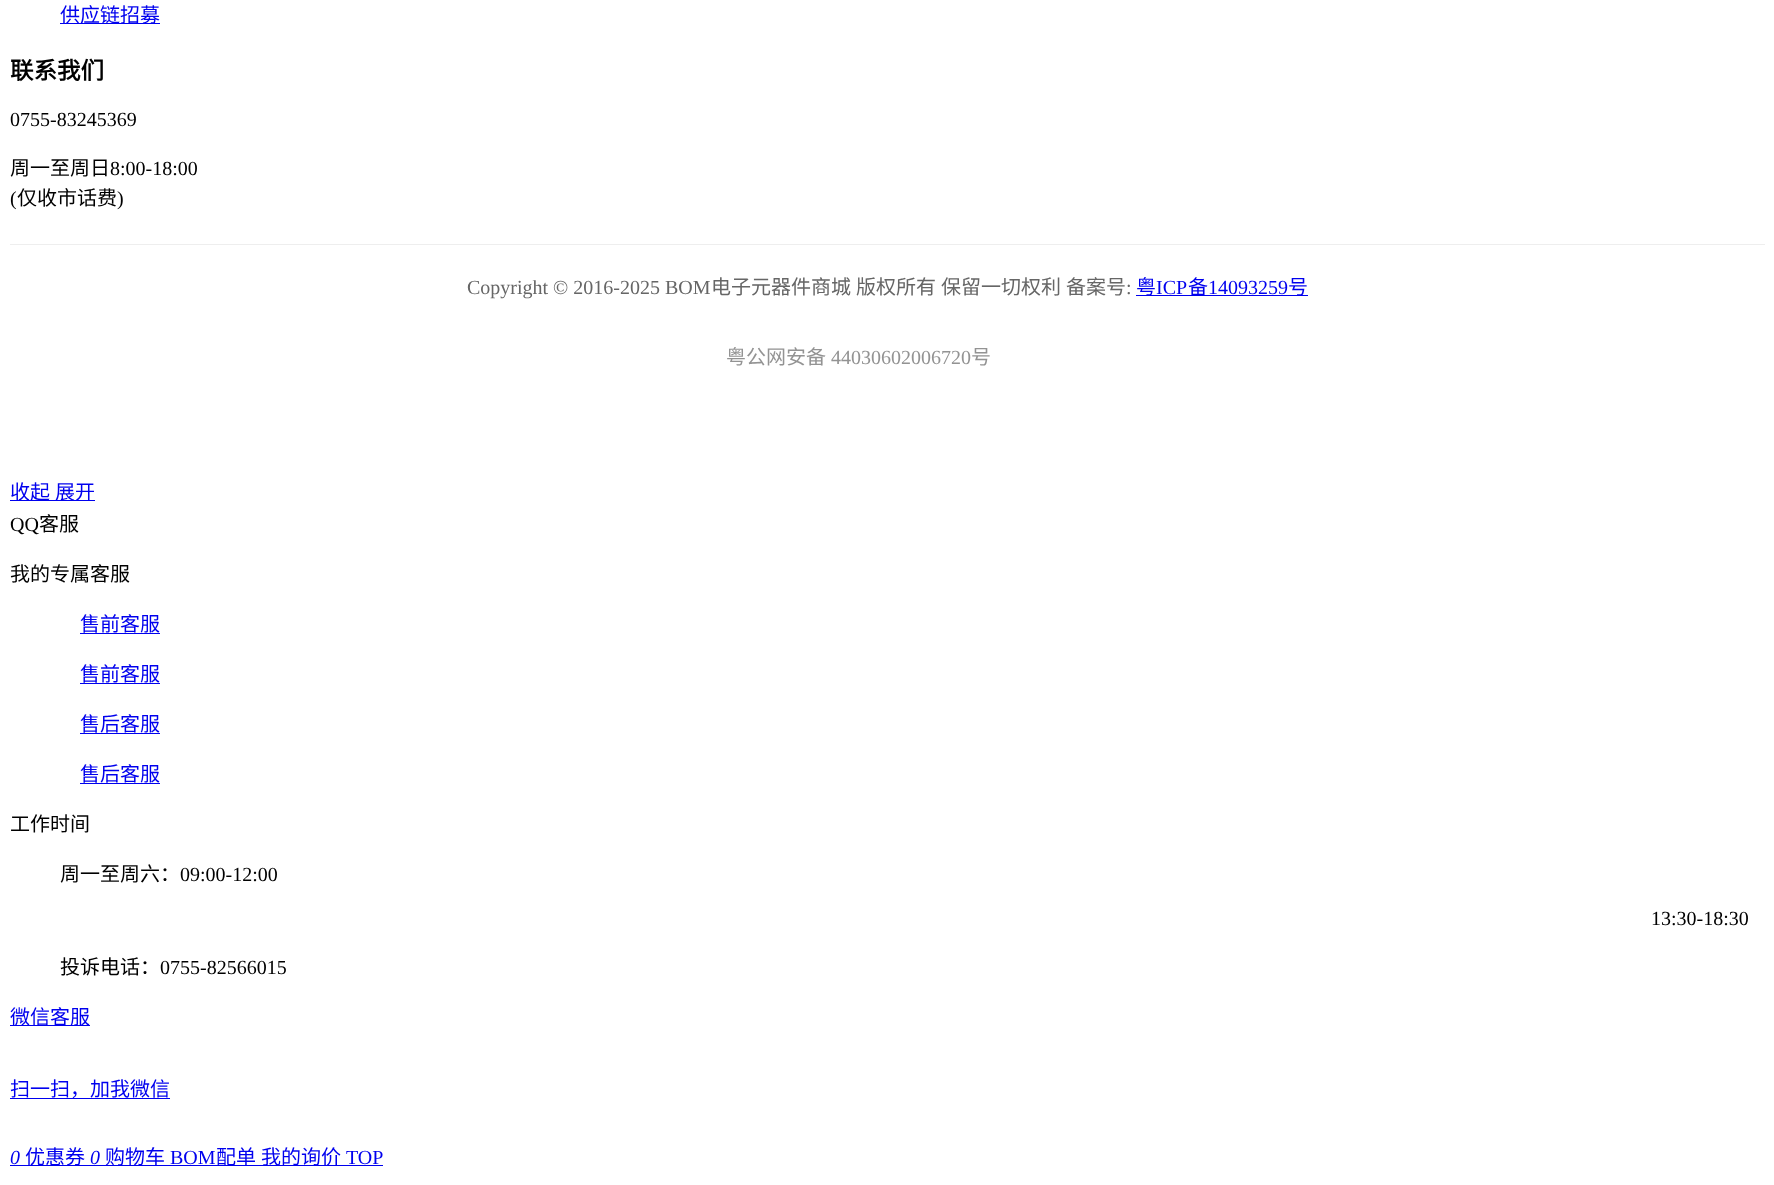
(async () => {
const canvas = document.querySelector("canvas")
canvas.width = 1774
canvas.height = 1185
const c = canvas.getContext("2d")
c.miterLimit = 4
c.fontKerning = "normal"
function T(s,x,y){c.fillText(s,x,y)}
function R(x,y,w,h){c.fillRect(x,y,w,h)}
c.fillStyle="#fff"
R(0,0,1774,1185)
c.fillStyle="#00e"
R(60,23,100,1)
c.font="20px Noto Sans CJK SC"
T("供应链招募",60,22)
c.font="bold 23.5px Noto Sans CJK SC"
c.fillStyle="#000"
T("联系我们",10,79)
c.font="20px Liberation Serif"
T("0755-83245369",10,126)
c.font="20px Noto Sans CJK SC"
T("周一至周日",10,175)
c.font="20px Liberation Serif"
T("8:00-18:00",110,175)
T("(",10,205)
c.font="20px Noto Sans CJK SC"
T("仅收市话费",17,205)
c.font="20px Liberation Serif"
T(")",117,205)
c.fillStyle="#eee"
R(10,244,1755,1)
c.fillStyle="#666"
T("Copyright © 2016-2025 BOM",467,294)
c.font="20px Noto Sans CJK SC"
T("电子元器件商城",711,294)
T("版权所有",856,294)
T("保留一切权利",941,294)
T("备案号",1066,294)
c.font="20px Liberation Serif"
T(":",1126,294)
c.fillStyle="#00e"
R(1136,295,172,1)
c.font="20px Noto Sans CJK SC"
T("粤",1136,294)
c.font="20px Liberation Serif"
T("ICP",1156,294)
c.font="20px Noto Sans CJK SC"
T("备",1188,294)
c.font="20px Liberation Serif"
T("14093259",1208,294)
c.font="20px Noto Sans CJK SC"
T("号",1288,294)
c.fillStyle="#939393"
T("粤公网安备",726,364)
c.font="20px Liberation Serif"
T("44030602006720",831,364)
c.font="20px Noto Sans CJK SC"
T("号",971,364)
c.fillStyle="#00e"
R(10,500,85,1)
T("收起",10,499)
T("展开",55,499)
c.font="20px Liberation Serif"
c.fillStyle="#000"
T("QQ",10,531)
c.font="20px Noto Sans CJK SC"
T("客服",39,531)
T("我的专属客服",10,581)
c.fillStyle="#00e"
T("售前客服",80,631)
R(80,633,80,1)
T("售前客服",80,681)
R(80,683,80,1)
T("售后客服",80,731)
R(80,733,80,1)
T("售后客服",80,781)
R(80,783,80,1)
c.fillStyle="#000"
T("工作时间",10,831)
T("周一至周六：",60,881)
c.font="20px Liberation Serif"
T("09:00-12:00",180,881)
T("13:30-18:30",1651,925)
c.font="20px Noto Sans CJK SC"
T("投诉电话：",60,974)
c.font="20px Liberation Serif"
T("0755-82566015",160,974)
c.fillStyle="#00e"
R(10,1025,80,1)
c.font="20px Noto Sans CJK SC"
T("微信客服",10,1024)
R(10,1098,160,1)
T("扫一扫，加我微信",10,1096)
c.font="italic 20px Liberation Serif"
T("0",10,1164)
R(10,1165,373,1)
c.font="20px Noto Sans CJK SC"
T("优惠券",25,1164)
c.font="italic 20px Liberation Serif"
T("0",90,1164)
c.font="20px Noto Sans CJK SC"
T("购物车",105,1164)
c.font="20px Liberation Serif"
T("BOM",170,1164)
c.font="20px Noto Sans CJK SC"
T("配单",216,1164)
T("我的询价",261,1164)
c.font="20px Liberation Serif"
T("TOP",346,1164)
})()
